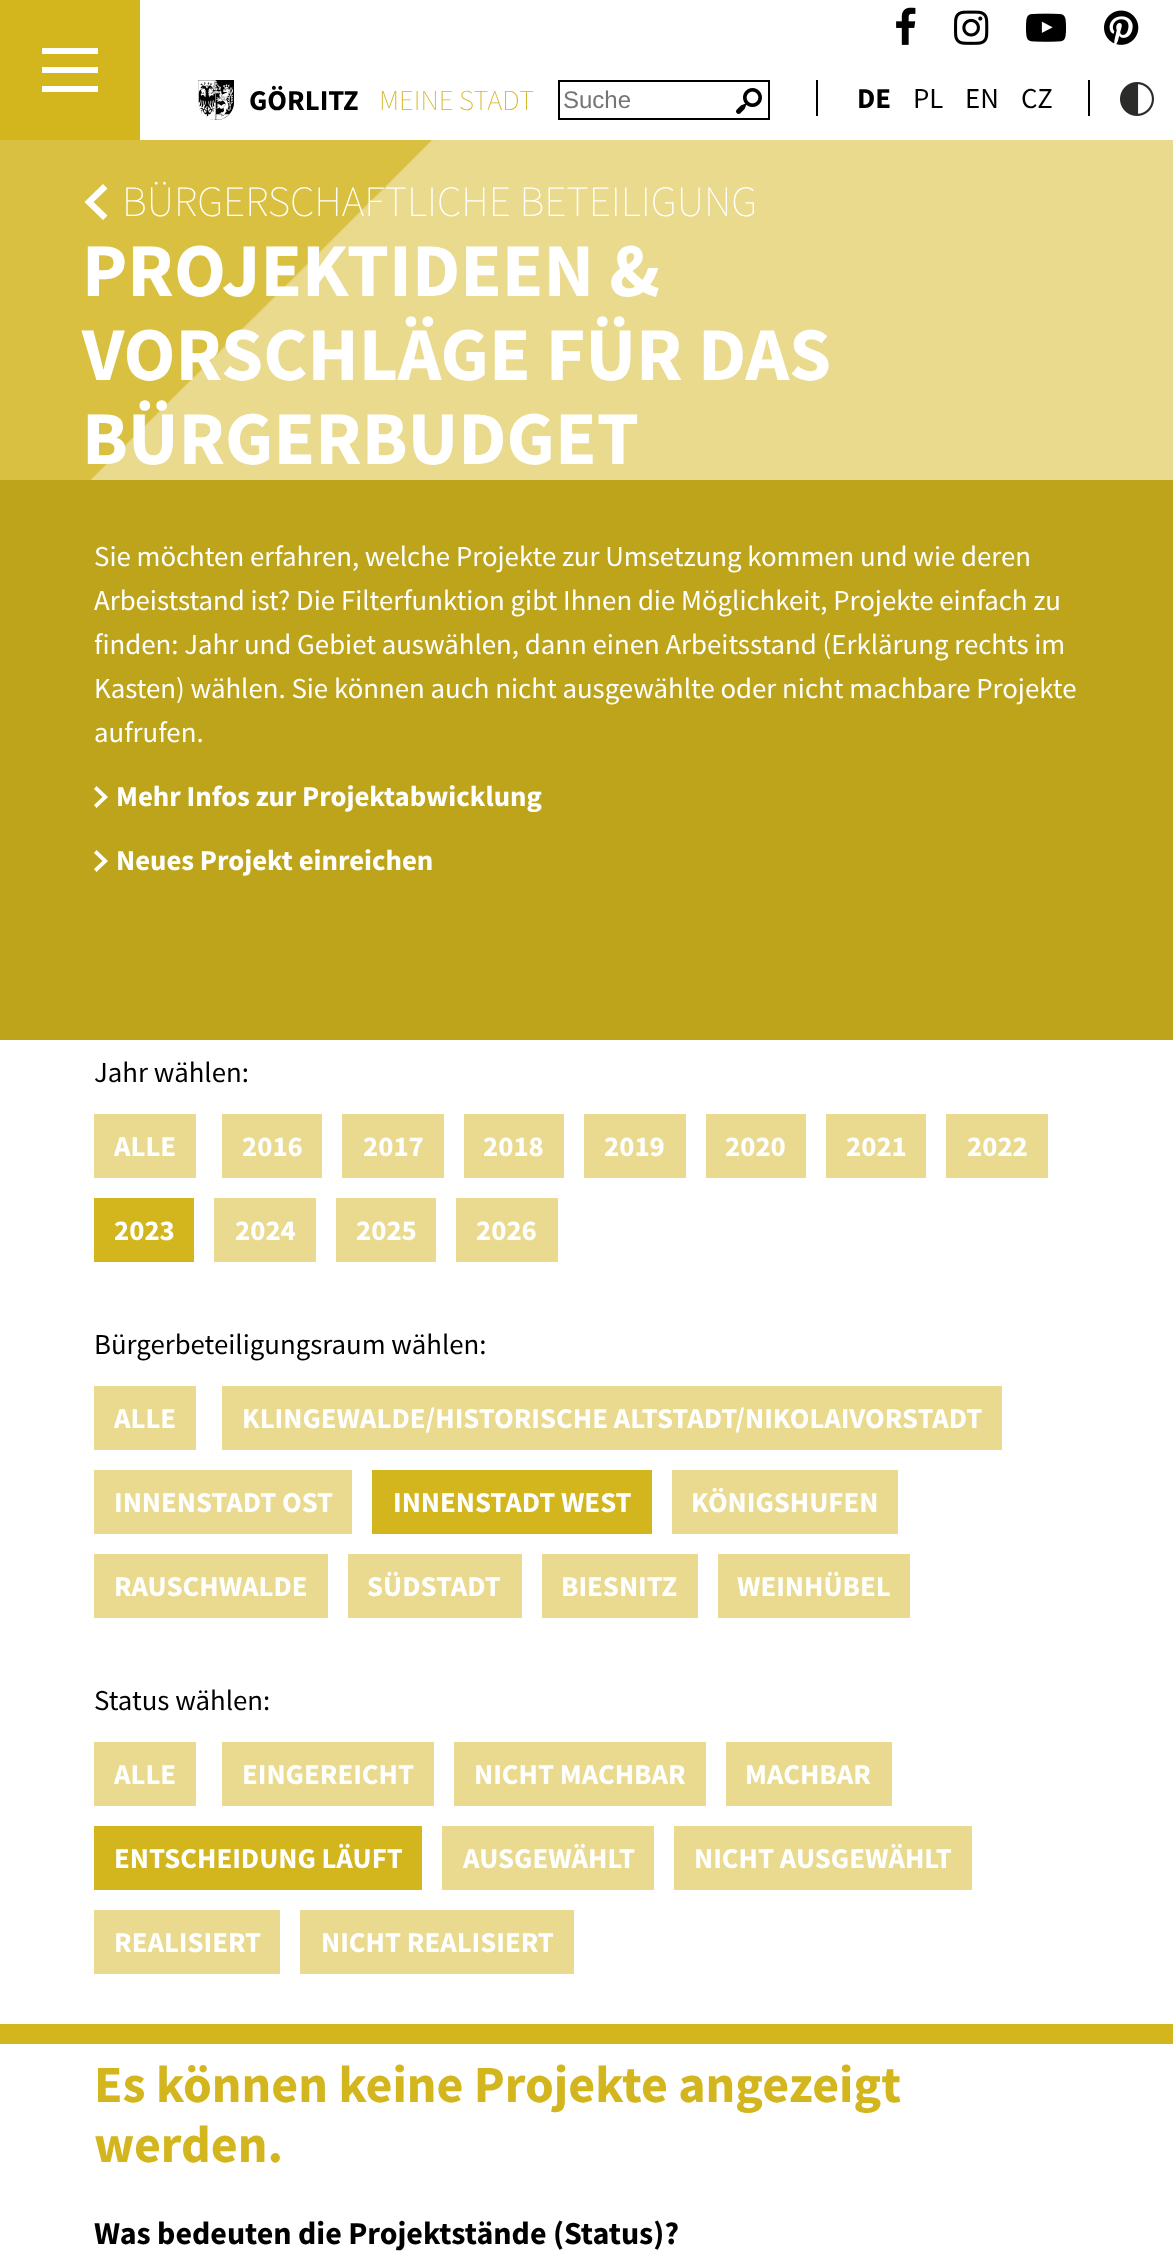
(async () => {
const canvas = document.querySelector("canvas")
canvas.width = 1173
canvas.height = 2266
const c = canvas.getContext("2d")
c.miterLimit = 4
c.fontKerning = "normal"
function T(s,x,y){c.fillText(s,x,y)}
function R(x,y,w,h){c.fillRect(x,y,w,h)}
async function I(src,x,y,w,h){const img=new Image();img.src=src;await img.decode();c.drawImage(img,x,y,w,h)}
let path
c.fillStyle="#d3b51e"
R(0,0,1173,2266)
c.fillStyle="#fff"
R(140,0,1033,140)
await I("1.png",896,7,20,38)
await I("2.png",954,10,35,35)
await I("3.png",1026,13,40,29)
await I("4.png",1104,10,35,35)
R(42,48,56,6)
R(42,67,56,6)
R(42,86,56,6)
await I("5.png",198,80,36,40)
c.font="bold 28.8px Source Sans Pro"
c.fillStyle="#000"
T("GÖRLITZ",249,110)
c.font="200 28.8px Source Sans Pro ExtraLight"
c.fillStyle="#d3b51e"
T("MEINE STADT",379,110)
await I("6.png",736,88,26,26)
c.strokeStyle="#000"
c.lineWidth=2
c.strokeRect(559,81,210,38)
c.font="24px Liberation Sans"
c.fillStyle="#757575"
T("Suche",563,108)
c.fillStyle="#000"
R(816,80,2,36)
c.font="bold 28.8px Source Sans Pro"
T("DE",857,108)
c.font="28.8px Source Sans Pro"
T("PL",913,108)
T("EN",965,108)
T("CZ",1021,108)
R(1088,80,2,36)
await I("7.png",1120,82,34,34)
await I("8.png",0,140,1173,340)
c.font="200 43.25px Source Sans Pro ExtraLight"
c.fillStyle="#fff"
T("BÜRGERSCHAFTLICHE BETEILIGUNG",122,216)
path = new Path2D("M103 184l-18.5 18l18.5 18l4.5-4.5l-14-13.5l14-13.5z")
c.fill(path)
c.font="bold 76px Source Sans Pro"
T("PROJEKTIDEEN &",82,296)
T("VORSCHLÄGE FÜR DAS",82,380)
T("BÜRGERBUDGET",82,464)
c.fillStyle="#bda41b"
R(0,480,1173,560)
c.font="28.8px Source Sans Pro"
c.fillStyle="#fff"
T("Sie möchten erfahren, welche Projekte zur Umsetzung kommen und wie deren",94,566)
T("Arbeiststand ist? Die Filterfunktion gibt Ihnen die Möglichkeit, Projekte einfach zu",94,610)
T("finden: Jahr und Gebiet auswählen, dann einen Arbeitsstand (Erklärung rechts im",94,654)
T("Kasten) wählen. Sie können auch nicht ausgewählte oder nicht machbare Projekte",94,698)
T("aufrufen.",94,742)
c.font="bold 28.8px Source Sans Pro"
T("Mehr Infos zur Projektabwicklung",116,806)
path = new Path2D("M96.5 786l-2.5 3l8.5 8l-8.5 8l2.5 3l11.5-11z")
c.fill(path)
T("Neues Projekt einreichen",116,870)
path = new Path2D("M96.5 850l-2.5 3l8.5 8l-8.5 8l2.5 3l11.5-11z")
c.fill(path)
R(0,1040,1173,984)
c.font="28.8px Source Sans Pro"
c.fillStyle="#000"
T("Jahr wählen:",94,1082)
c.fillStyle="#e9da8f"
R(94,1114,102,64)
c.font="bold 28.8px Source Sans Pro"
c.fillStyle="#fff"
T("ALLE",114,1156)
c.fillStyle="#e9da8f"
R(222,1114,100,64)
c.fillStyle="#fff"
T("2016",242,1156)
c.fillStyle="#e9da8f"
R(342,1114,102,64)
c.fillStyle="#fff"
T("2017",363,1156)
c.fillStyle="#e9da8f"
R(464,1114,100,64)
c.fillStyle="#fff"
T("2018",483,1156)
c.fillStyle="#e9da8f"
R(584,1114,102,64)
c.fillStyle="#fff"
T("2019",604,1156)
c.fillStyle="#e9da8f"
R(706,1114,100,64)
c.fillStyle="#fff"
T("2020",725,1156)
c.fillStyle="#e9da8f"
R(826,1114,100,64)
c.fillStyle="#fff"
T("2021",846,1156)
c.fillStyle="#e9da8f"
R(946,1114,102,64)
c.fillStyle="#fff"
T("2022",967,1156)
c.fillStyle="#d3b51e"
R(94,1198,100,64)
c.fillStyle="#fff"
T("2023",114,1240)
c.fillStyle="#e9da8f"
R(214,1198,102,64)
c.fillStyle="#fff"
T("2024",235,1240)
c.fillStyle="#e9da8f"
R(336,1198,100,64)
c.fillStyle="#fff"
T("2025",356,1240)
c.fillStyle="#e9da8f"
R(456,1198,102,64)
c.fillStyle="#fff"
T("2026",476,1240)
c.font="28.8px Source Sans Pro"
c.fillStyle="#000"
T("Bürgerbeteiligungsraum wählen:",94,1354)
c.fillStyle="#e9da8f"
R(94,1386,102,64)
c.font="bold 28.8px Source Sans Pro"
c.fillStyle="#fff"
T("ALLE",114,1428)
c.fillStyle="#e9da8f"
R(222,1386,780,64)
c.fillStyle="#fff"
T("KLINGEWALDE/HISTORISCHE ALTSTADT/NIKOLAIVORSTADT",242,1428)
c.fillStyle="#e9da8f"
R(94,1470,258,64)
c.fillStyle="#fff"
T("INNENSTADT OST",114,1512)
c.fillStyle="#d3b51e"
R(372,1470,280,64)
c.fillStyle="#fff"
T("INNENSTADT WEST",393,1512)
c.fillStyle="#e9da8f"
R(672,1470,226,64)
c.fillStyle="#fff"
T("KÖNIGSHUFEN",691,1512)
c.fillStyle="#e9da8f"
R(94,1554,234,64)
c.fillStyle="#fff"
T("RAUSCHWALDE",114,1596)
c.fillStyle="#e9da8f"
R(348,1554,174,64)
c.fillStyle="#fff"
T("SÜDSTADT",367,1596)
c.fillStyle="#e9da8f"
R(542,1554,156,64)
c.fillStyle="#fff"
T("BIESNITZ",561,1596)
c.fillStyle="#e9da8f"
R(718,1554,192,64)
c.fillStyle="#fff"
T("WEINHÜBEL",737,1596)
c.font="28.8px Source Sans Pro"
c.fillStyle="#000"
T("Status wählen:",94,1710)
c.fillStyle="#e9da8f"
R(94,1742,102,64)
c.font="bold 28.8px Source Sans Pro"
c.fillStyle="#fff"
T("ALLE",114,1784)
c.fillStyle="#e9da8f"
R(222,1742,212,64)
c.fillStyle="#fff"
T("EINGEREICHT",242,1784)
c.fillStyle="#e9da8f"
R(454,1742,252,64)
c.fillStyle="#fff"
T("NICHT MACHBAR",474,1784)
c.fillStyle="#e9da8f"
R(726,1742,166,64)
c.fillStyle="#fff"
T("MACHBAR",745,1784)
c.fillStyle="#d3b51e"
R(94,1826,328,64)
c.fillStyle="#fff"
T("ENTSCHEIDUNG LÄUFT",114,1868)
c.fillStyle="#e9da8f"
R(442,1826,212,64)
c.fillStyle="#fff"
T("AUSGEWÄHLT",463,1868)
c.fillStyle="#e9da8f"
R(674,1826,298,64)
c.fillStyle="#fff"
T("NICHT AUSGEWÄHLT",694,1868)
c.fillStyle="#e9da8f"
R(94,1910,186,64)
c.fillStyle="#fff"
T("REALISIERT",114,1952)
c.fillStyle="#e9da8f"
R(300,1910,274,64)
c.fillStyle="#fff"
T("NICHT REALISIERT",321,1952)
R(0,2044,1173,222)
c.font="bold 52px Source Sans Pro"
c.fillStyle="#d3b51e"
T("Es können keine Projekte angezeigt",94,2102)
T("werden.",94,2162)
c.font="bold 32px Source Sans Pro"
c.fillStyle="#000"
T("Was bedeuten die Projektstände (Status)?",94,2244)
})()
